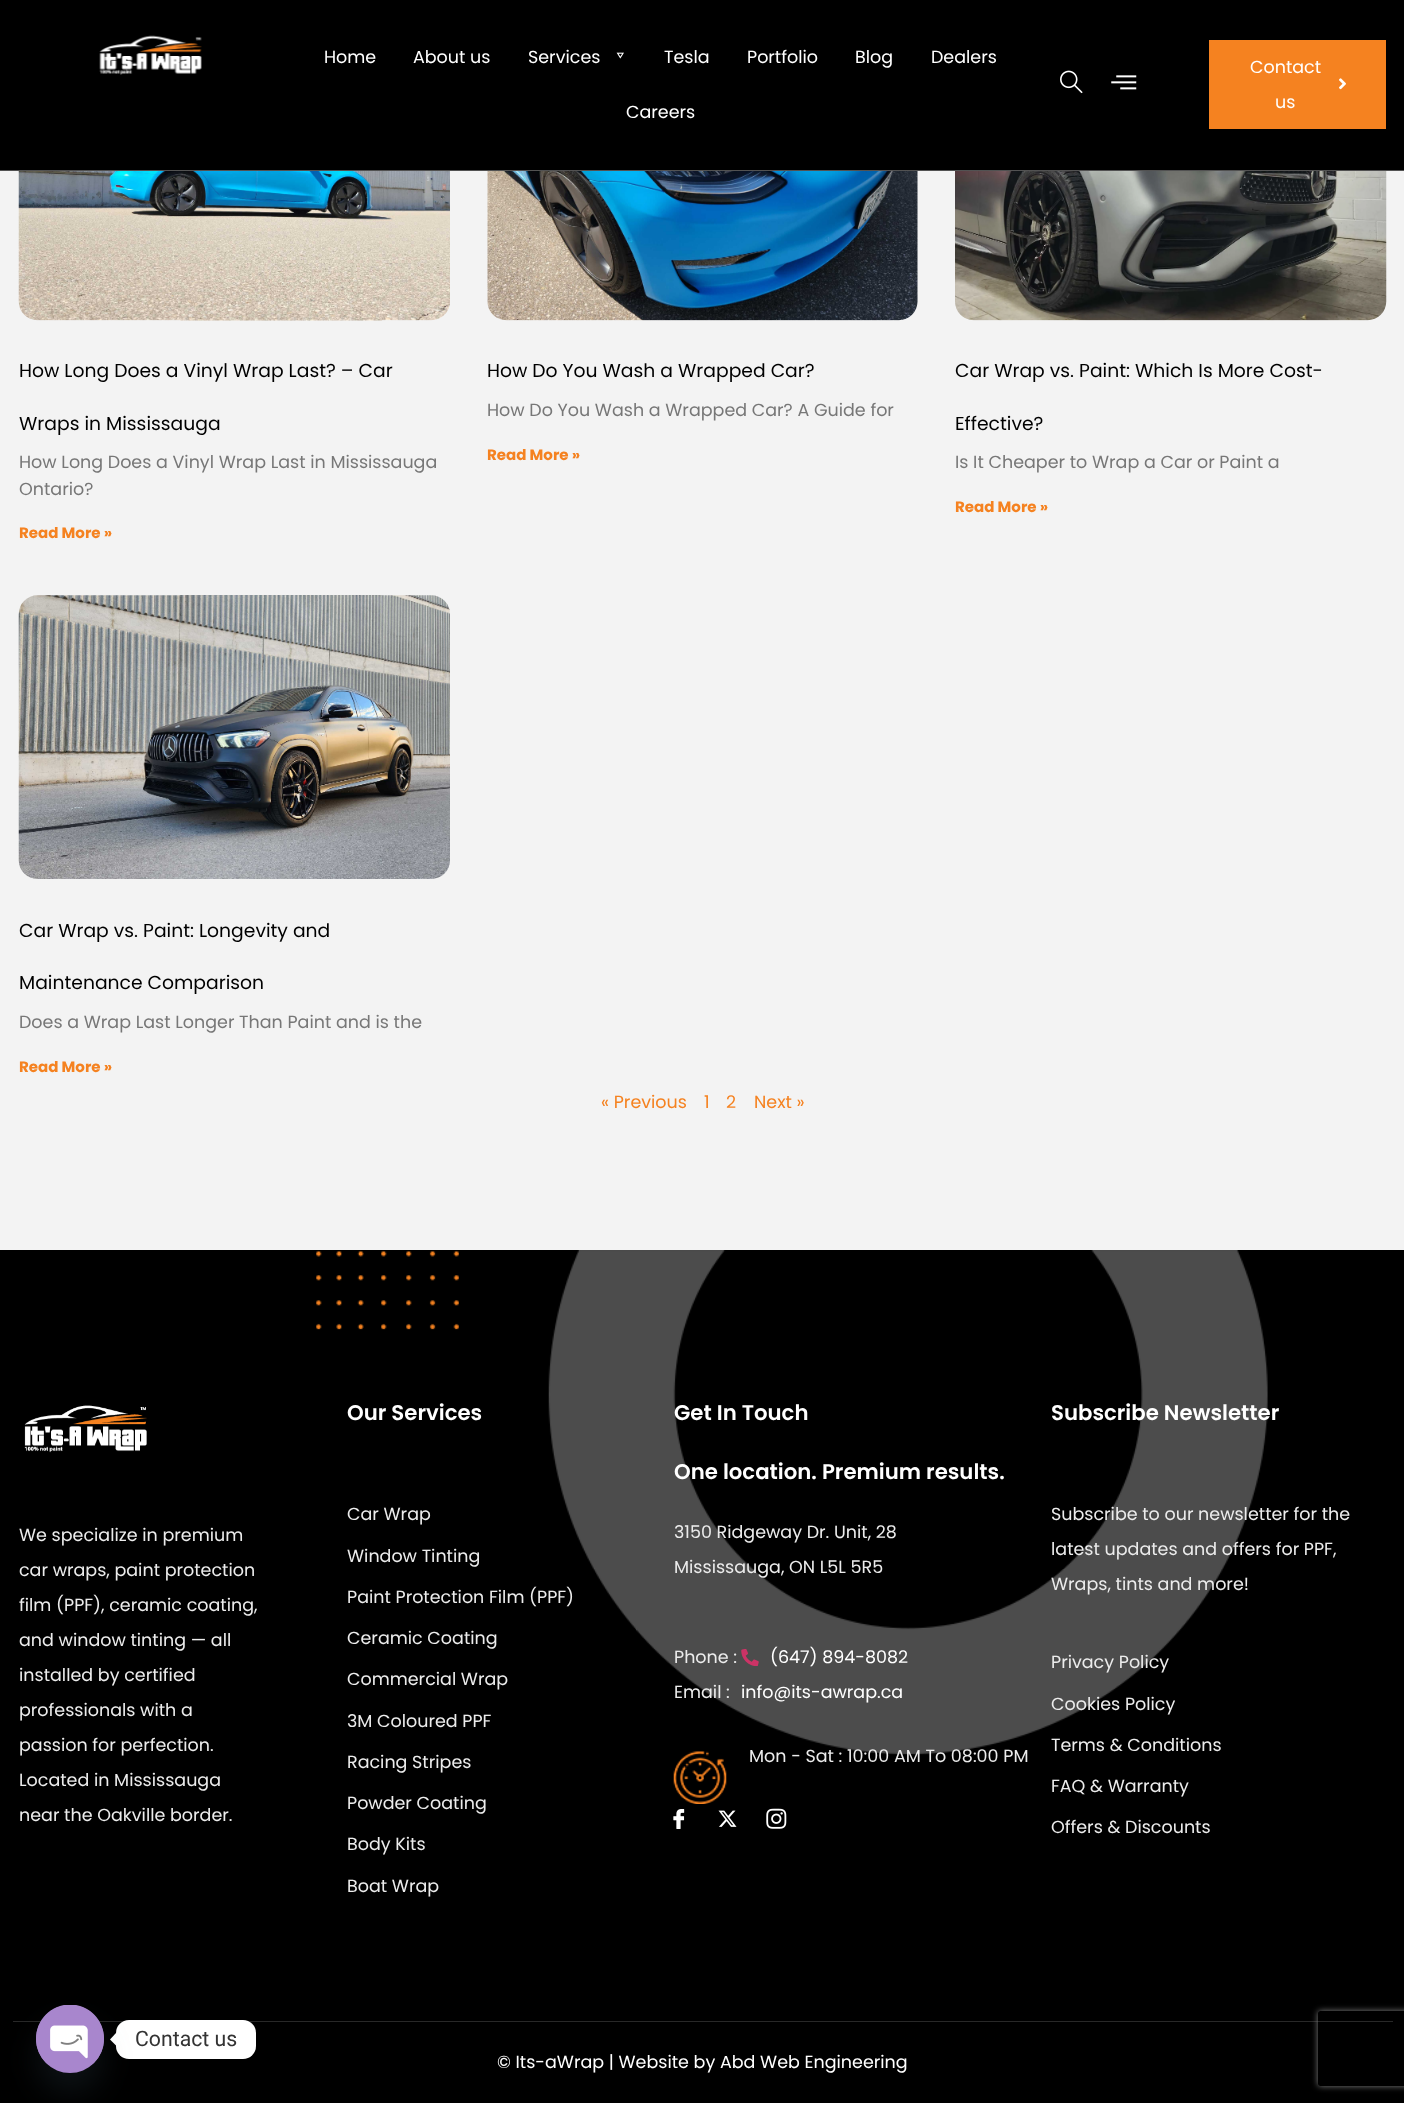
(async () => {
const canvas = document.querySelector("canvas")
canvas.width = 1404
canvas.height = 2103
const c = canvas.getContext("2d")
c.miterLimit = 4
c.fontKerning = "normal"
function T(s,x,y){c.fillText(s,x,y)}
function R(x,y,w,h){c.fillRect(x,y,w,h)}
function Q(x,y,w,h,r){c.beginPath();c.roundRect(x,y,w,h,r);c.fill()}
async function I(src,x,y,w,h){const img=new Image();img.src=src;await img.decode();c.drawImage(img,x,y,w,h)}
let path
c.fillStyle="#f3f3f3"
R(0,0,1404,2103)
c.fillStyle="#000"
R(0,0,1404,170)
c.fillStyle="#525252"
R(0,170,1404,1)
await I("1.png",99,35,103,40)
c.font="17.5px Poppins"
c.fillStyle="#fff"
T("Home",324,63)
T("About us",413,63)
T("Services",528,63)
await I("2.png",616,52,8,7)
T("Tesla",664,63)
T("Portfolio",747,63)
T("Blog",855,63)
T("Dealers",931,63)
T("Careers",626,118)
await I("3.png",1060,70,23,24)
await I("4.png",1111,75,26,15)
c.fillStyle="#f58220"
R(1209,40,177,89)
c.fillStyle="#fff"
T("Contact",1250,73)
T("us",1275,108)
await I("5.png",1339,78,7,12)
await I("6.png",18,171,432,150)
c.font="18.75px Poppins"
c.fillStyle="#000"
T("How Long Does a Vinyl Wrap Last? – Car",19,377)
T("Wraps in Mississauga",19,430)
c.font="17.5px Poppins"
c.fillStyle="#777"
T("How Long Does a Vinyl Wrap Last in Mississauga",19,468)
T("Ontario?",19,495)
c.font="bold 15px Poppins"
c.fillStyle="#f58220"
T("Read More »",19,538)
await I("7.png",487,171,431,150)
c.font="18.75px Poppins"
c.fillStyle="#000"
T("How Do You Wash a Wrapped Car?",487,377)
c.font="17.5px Poppins"
c.fillStyle="#777"
T("How Do You Wash a Wrapped Car? A Guide for",487,416)
c.font="bold 15px Poppins"
c.fillStyle="#f58220"
T("Read More »",487,460)
await I("8.png",955,171,432,150)
c.font="18.75px Poppins"
c.fillStyle="#000"
T("Car Wrap vs. Paint: Which Is More Cost-",955,377)
T("Effective?",955,430)
c.font="17.5px Poppins"
c.fillStyle="#777"
T("Is It Cheaper to Wrap a Car or Paint a",955,468)
c.font="bold 15px Poppins"
c.fillStyle="#f58220"
T("Read More »",955,512)
await I("9.png",18,595,432,284)
c.font="18.75px Poppins"
c.fillStyle="#000"
T("Car Wrap vs. Paint: Longevity and",19,937)
T("Maintenance Comparison",19,989)
c.font="17.5px Poppins"
c.fillStyle="#777"
T("Does a Wrap Last Longer Than Paint and is the",19,1028)
c.font="bold 15px Poppins"
c.fillStyle="#f58220"
T("Read More »",19,1072)
c.font="17.5px Poppins"
T("« Previous",601,1108)
T("1",704,1108)
T("2",726,1108)
T("Next »",754,1108)
c.fillStyle="#000"
R(0,1250,1404,853)
await I("10.png",316,1250,143,80)
await I("11.png",548,1250,720,505)
await I("12.png",24,1405,123,48)
c.fillStyle="#ececec"
T("We specialize in premium",19,1541)
T("car wraps, paint protection",19,1576)
T("film (PPF), ceramic coating,",19,1611)
T("and window tinting — all",19,1646)
T("installed by certified",19,1681)
T("professionals with a",19,1716)
T("passion for perfection.",19,1751)
T("Located in Mississauga",19,1786)
T("near the Oakville border.",19,1821)
c.font="600 21.25px Poppins"
c.fillStyle="#fff"
T("Our Services",347,1420)
c.font="17.5px Poppins"
c.fillStyle="#ececec"
T("Car Wrap",347,1520)
T("Window Tinting",347,1562)
T("Paint Protection Film (PPF)",347,1603)
T("Ceramic Coating",347,1644)
T("Commercial Wrap",347,1685)
T("3M Coloured PPF",347,1727)
T("Racing Stripes",347,1768)
T("Powder Coating",347,1809)
T("Body Kits",347,1850)
T("Boat Wrap",347,1892)
c.font="600 21.25px Poppins"
c.fillStyle="#fff"
T("Get In Touch",674,1420)
T("One location. Premium results.",674,1479)
c.font="17.5px Poppins"
c.fillStyle="#ececec"
T("3150 Ridgeway Dr. Unit, 28",674,1538)
T("Mississauga, ON L5L 5R5",674,1573)
T("Phone :",674,1663)
await I("13.png",741,1649,18,17)
c.fillStyle="#fff"
T("(647) 894-8082",770,1663)
c.fillStyle="#ececec"
T("Email :",674,1698)
c.fillStyle="#fff"
T("info@its-awrap.ca",741,1698)
await I("14.png",673,1751,54,53)
c.fillStyle="#ececec"
T("Mon - Sat : 10:00 AM To 08:00 PM",749,1762)
await I("15.png",673,1809,12,20)
await I("16.png",718,1810,19,17)
await I("17.png",766,1808,21,21)
c.font="600 21.25px Poppins"
c.fillStyle="#fff"
T("Subscribe Newsletter",1051,1420)
c.font="17.5px Poppins"
c.fillStyle="#ececec"
T("Subscribe to our newsletter for the",1051,1520)
T("latest updates and offers for PPF,",1051,1555)
T("Wraps, tints and more!",1051,1590)
T("Privacy Policy",1051,1668)
T("Cookies Policy",1051,1710)
T("Terms & Conditions",1051,1751)
T("FAQ & Warranty",1051,1792)
T("Offers & Discounts",1051,1833)
c.fillStyle="#282828"
R(13,2021,1380,1)
c.fillStyle="#fff"
T("© Its-aWrap | Website by Abd Web Engineering",497,2068)
c.save()
path = new Path2D("M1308 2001h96v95h-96zm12.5 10h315c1.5 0 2.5 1 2.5 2.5v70c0 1.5-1 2.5-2.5 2.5h-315c-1.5 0-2.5-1-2.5-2.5v-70c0-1.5 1-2.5 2.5-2.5z")
c.clip(path,"evenodd")
c.fillStyle="#808080"
c.filter="blur(3px)"
c.beginPath()
c.roundRect(1318,2011,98,75,2.5)
c.fill()
c.filter="none"
c.restore()
Q(116,2020,140,39,13)
path = new Path2D("M116 2033v12.5l-6-6z")
c.fill(path)
c.fillStyle="#49687e29"
c.filter="blur(15px)"
c.beginPath()
c.roundRect(36,2025,68,68,34)
c.fill()
c.filter="none"
c.fillStyle="#a886cd"
c.beginPath()
c.arc(70,2039,34,0,7)
c.fill()
await I("18.png",36,2005,68,60)
c.font="21.25px Roboto"
c.fillStyle="#333"
T("Contact us",135,2046)
})()
